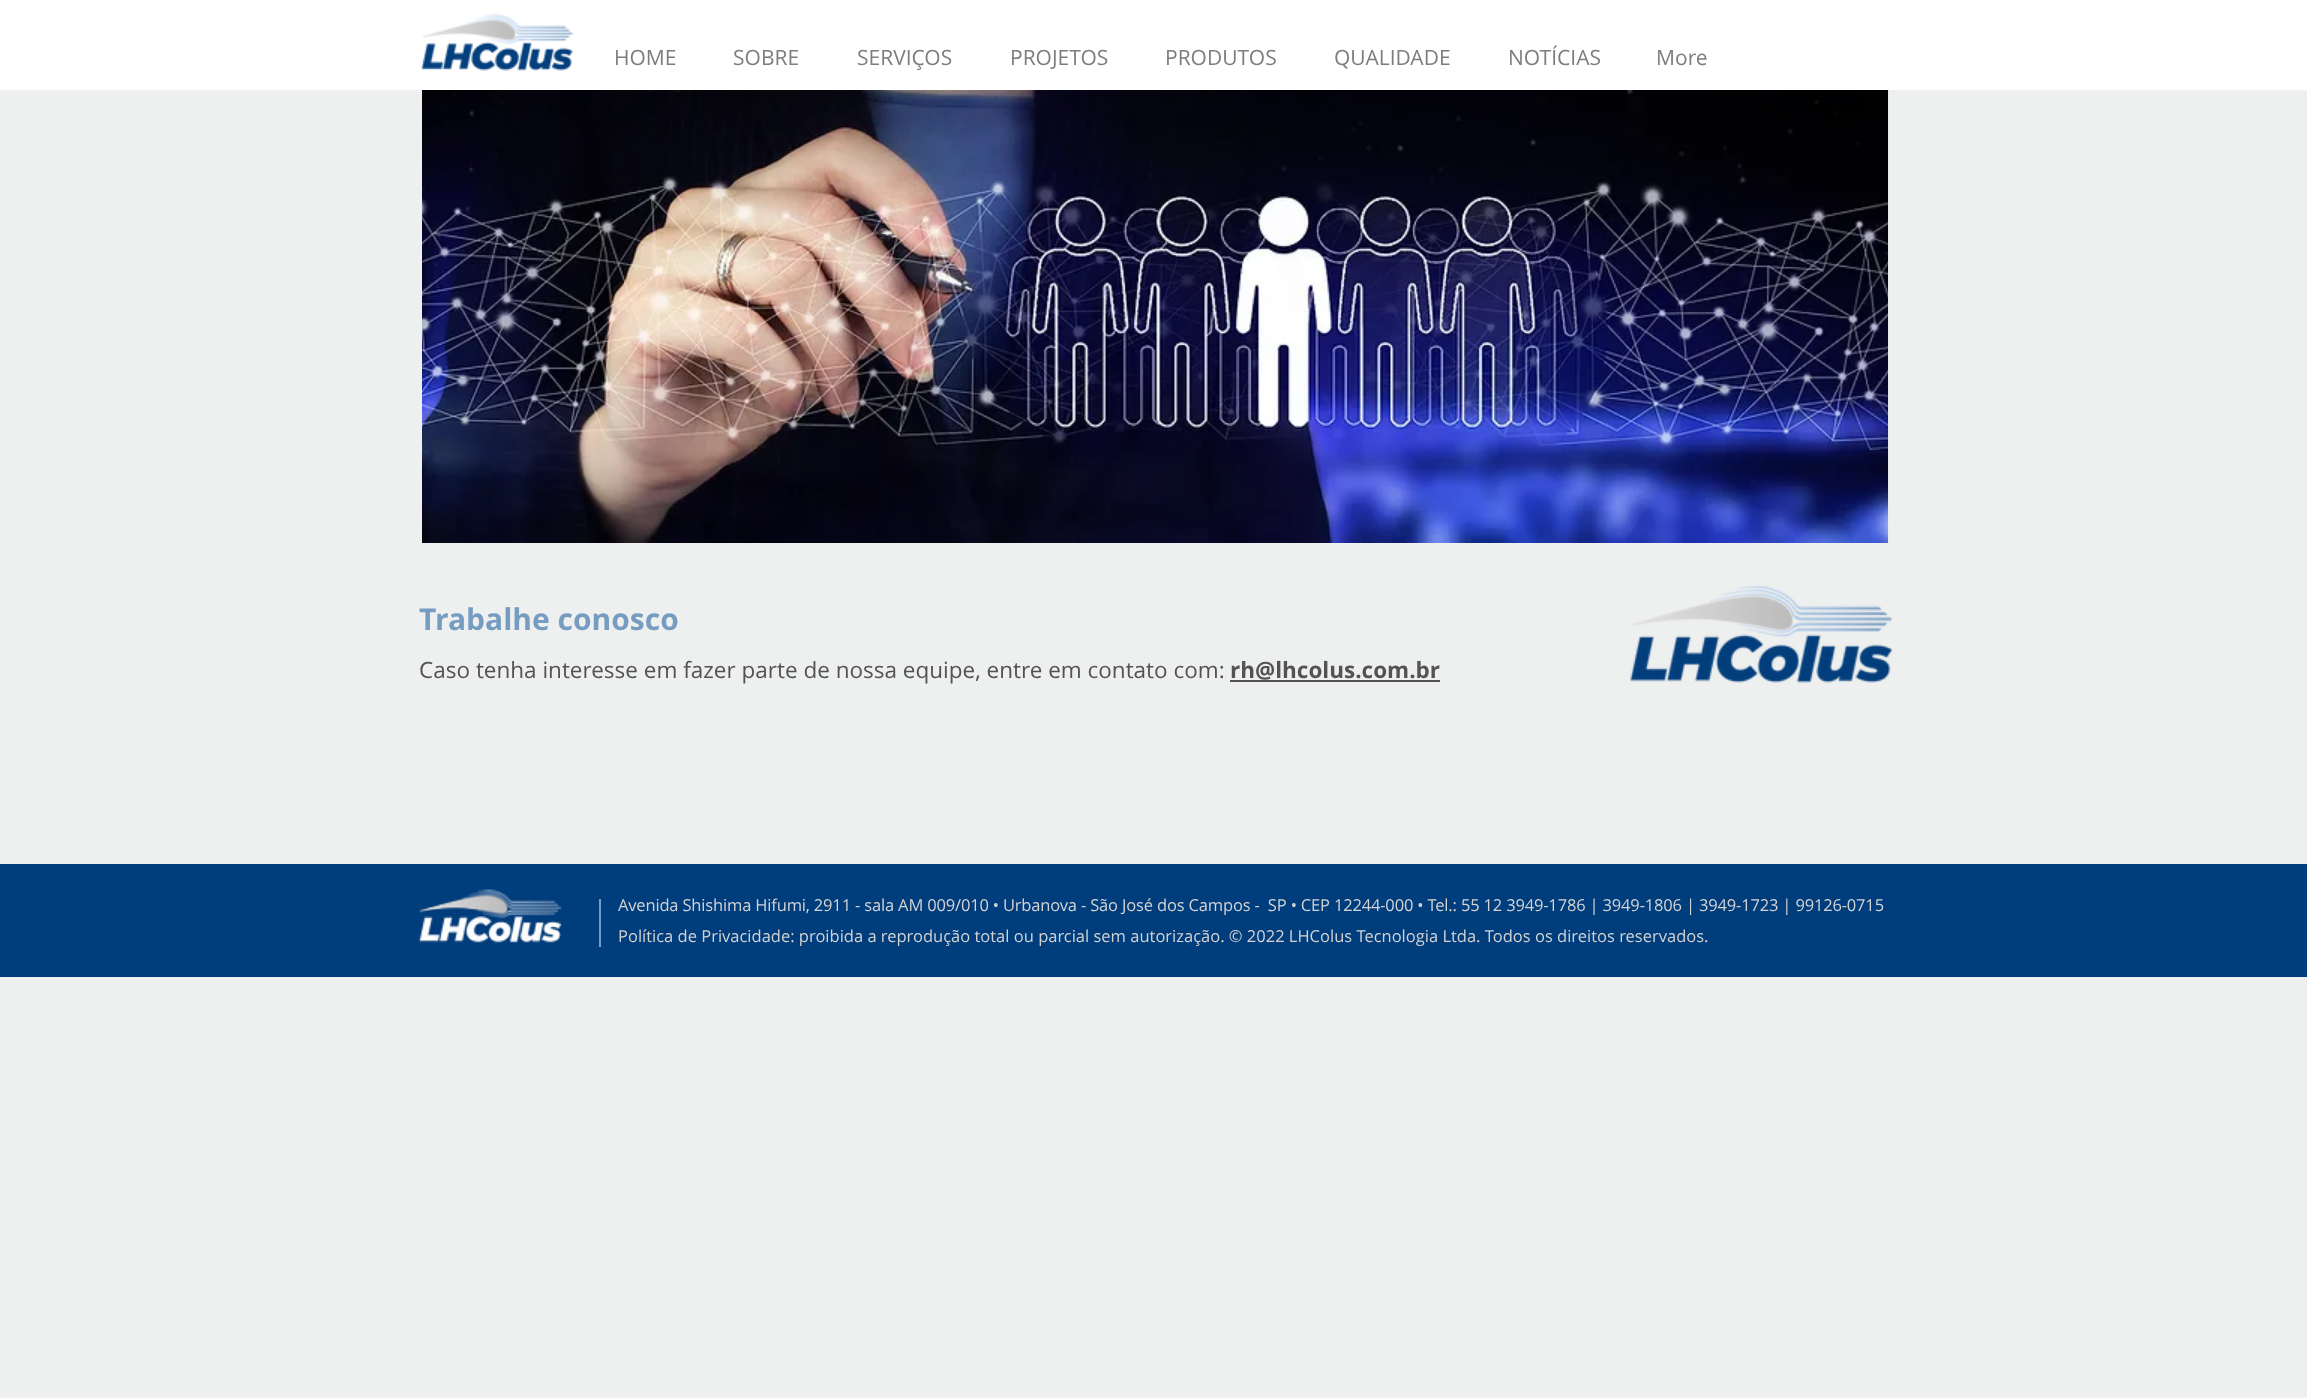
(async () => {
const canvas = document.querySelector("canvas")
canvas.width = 2307
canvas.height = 1398
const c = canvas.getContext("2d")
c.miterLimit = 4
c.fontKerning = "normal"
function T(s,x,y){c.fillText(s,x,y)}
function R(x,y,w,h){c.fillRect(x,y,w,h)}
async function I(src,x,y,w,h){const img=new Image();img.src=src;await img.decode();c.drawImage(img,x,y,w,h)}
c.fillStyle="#eeefef"
R(0,0,2307,1398)
c.fillStyle="#fff"
R(0,0,2307,90)
await I("1.png",421,13,153,58)
c.font="21px Open Sans"
c.fillStyle="#7d7d7d"
T("HOME",614,65)
T("SOBRE",733,65)
T("SERVIÇOS",857,65)
T("PROJETOS",1010,65)
T("PRODUTOS",1165,65)
T("QUALIDADE",1334,65)
T("NOTÍCIAS",1508,65)
T("More",1656,65)
await I("2.png",422,90,1467,453)
c.font="bold 30px Open Sans"
c.fillStyle="#779cc1"
T("Trabalhe conosco",419,630)
c.font="22.5px Open Sans"
c.fillStyle="#535353"
T("Caso tenha interesse em fazer parte de nossa equipe, entre em contato com:",419,678)
c.font="bold 22.5px Open Sans"
T("rh@lhcolus.com.br",1230,678)
R(1230,680,210,2)
await I("3.png",1630,585,263,98)
c.fillStyle="#003d7c"
R(0,864,2307,113)
await I("4.png",418,889,144,54)
c.fillStyle="#779cc1"
R(599,899,2,48)
c.letterSpacing="-0.17px"
c.font="16.5px Open Sans"
c.fillStyle="#d3d3d3"
T("Avenida Shishima Hifumi, 2911 - sala AM 009/010 • Urbanova - São José dos Campos -  SP • CEP 12244-000 • Tel.: 55 12 3949-1786 | 3949-1806 | 3949-1723 | 99126-0715",618,911)
c.letterSpacing="0px"
T("Política de Privacidade: proibida a reprodução total ou parcial sem autorização. © 2022 LHColus Tecnologia Ltda. Todos os direitos reservados.",618,942)
})()
